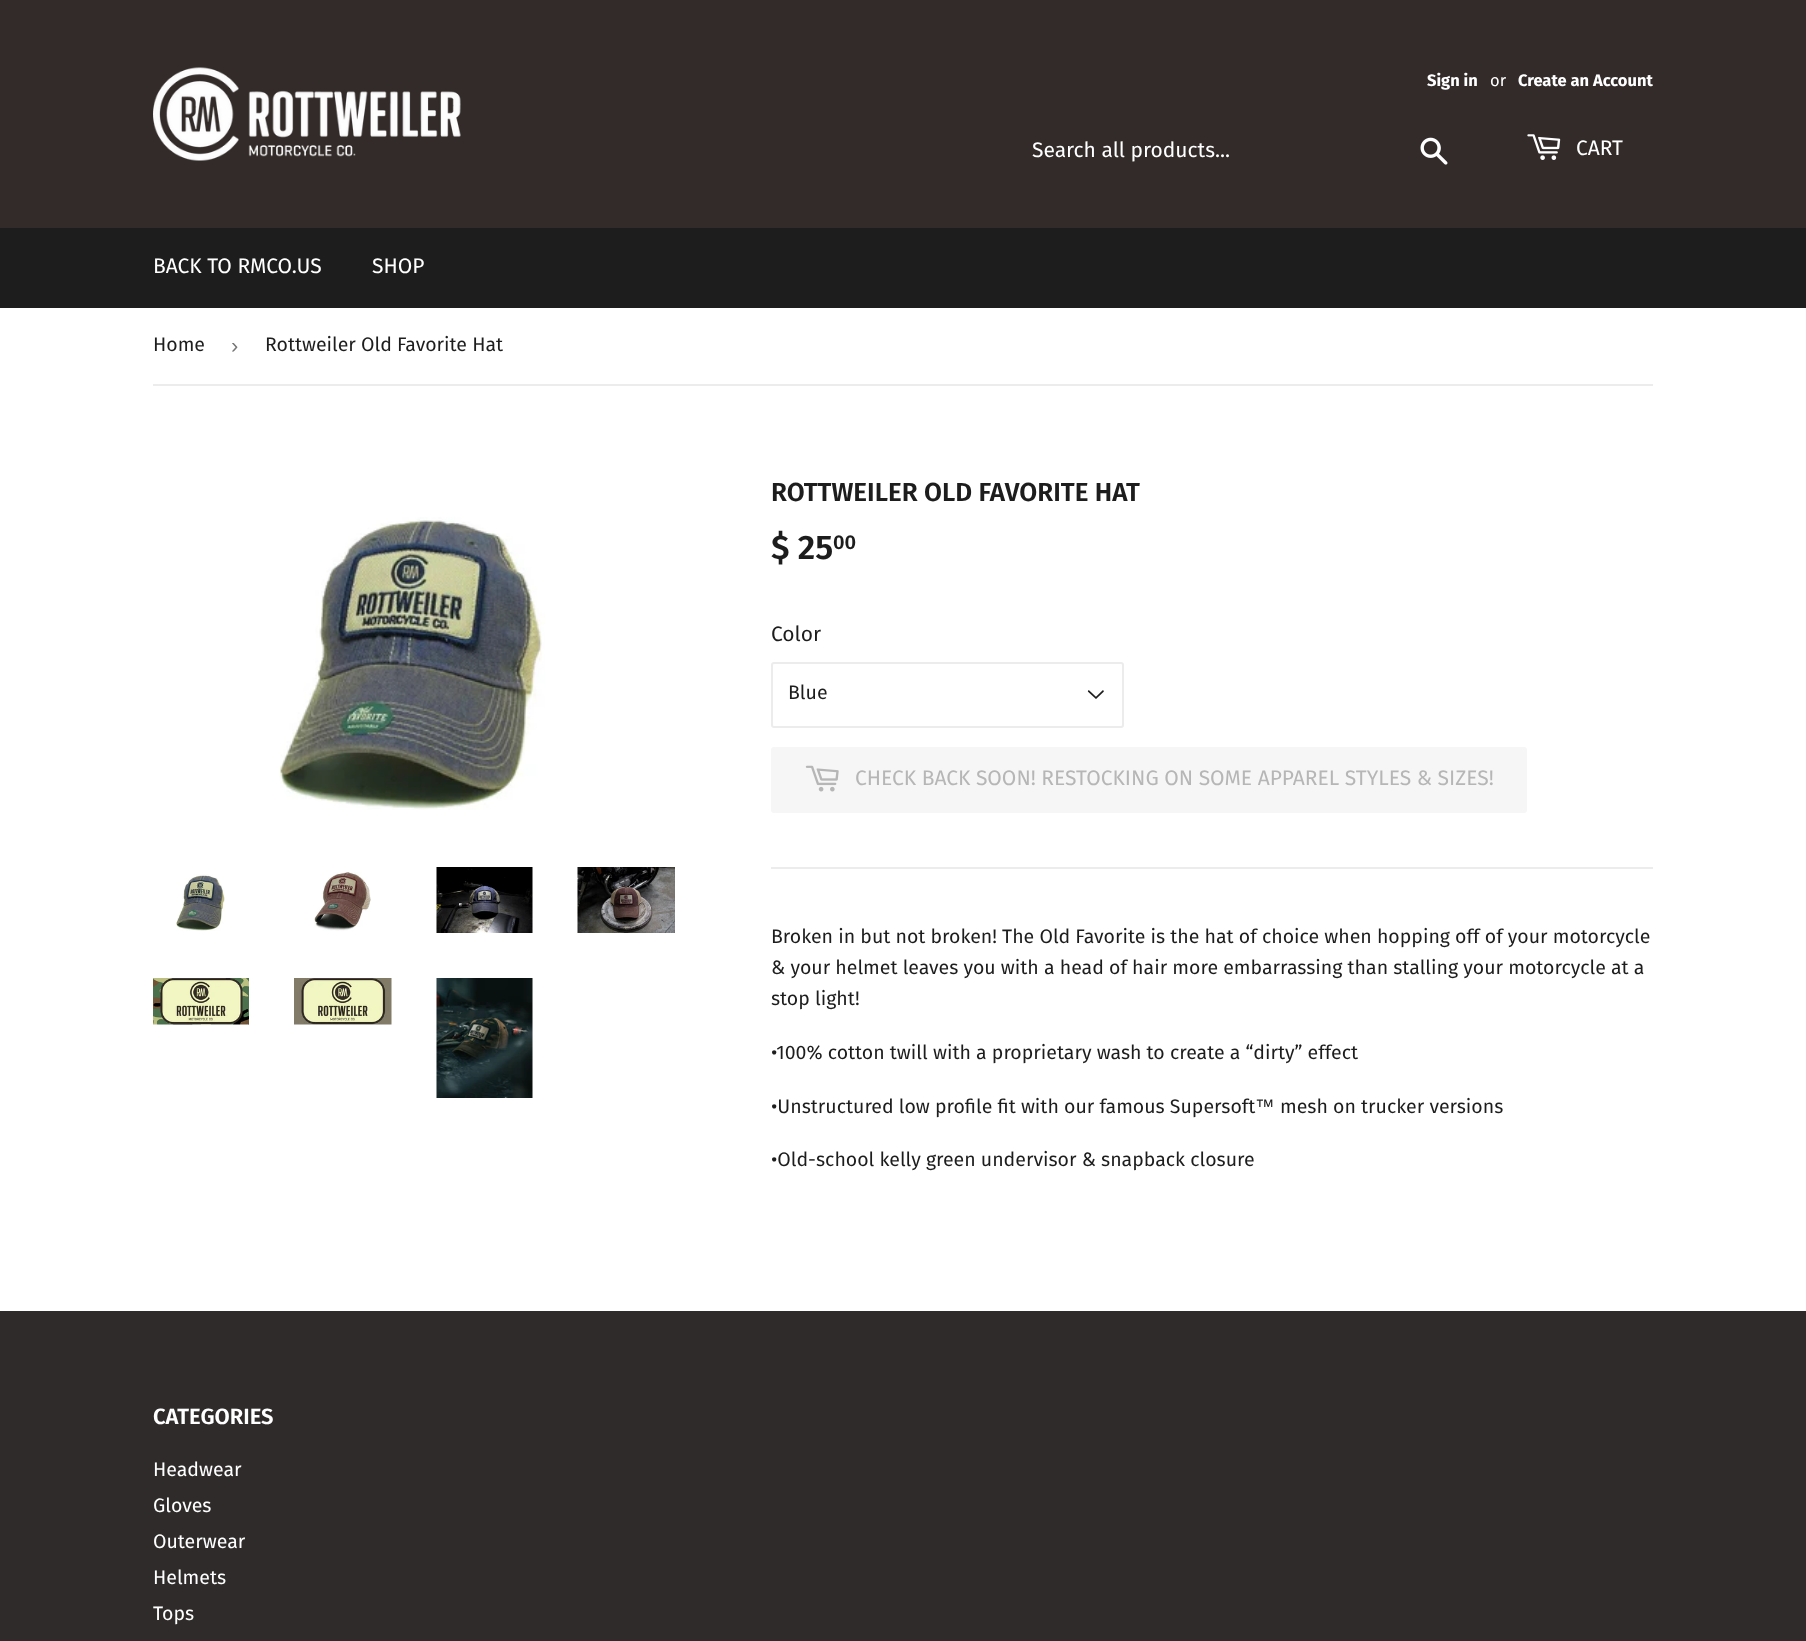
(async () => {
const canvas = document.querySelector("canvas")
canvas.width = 1806
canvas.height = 1641
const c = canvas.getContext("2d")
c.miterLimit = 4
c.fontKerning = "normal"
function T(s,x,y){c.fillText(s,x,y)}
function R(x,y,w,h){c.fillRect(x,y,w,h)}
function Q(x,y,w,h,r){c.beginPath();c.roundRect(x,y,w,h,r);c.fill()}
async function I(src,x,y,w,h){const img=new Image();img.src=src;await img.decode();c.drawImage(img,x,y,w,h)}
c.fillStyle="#fff"
R(0,0,1806,1641)
c.fillStyle="#322b29"
R(0,0,1806,228)
await I("1.png",153,67,308,94)
c.font="bold 16.5px Fira Sans"
c.fillStyle="#fff"
T("Sign in",1427,86)
c.font="16.5px Fira Sans"
T("or",1490,86)
c.font="bold 16.5px Fira Sans"
T("Create an Account",1518,86)
c.font="21px Fira Sans"
T("Search all products...",1032,157)
await I("2.png",1420,137,28,28)
await I("3.png",1527,134,34,26)
T("CART",1576,155)
c.fillStyle="#1d1d1d"
R(0,228,1806,80)
c.fillStyle="#fff"
T("BACK TO RMCO.US",153,273)
T("SHOP",372,273)
c.fillStyle="#ececec"
R(153,384,1500,2)
c.font="19.5px Fira Sans"
c.fillStyle="#1d1d1d"
T("Home",153,351)
c.font="22px Liberation Sans"
c.fillStyle="#767676"
T("›",231,353)
c.font="19.5px Fira Sans"
c.fillStyle="#1d1d1d"
T("Rottweiler Old Favorite Hat",265,351)
await I("4.png",279,517,266,293)
await I("5.png",176,874,49,57)
await I("6.png",314,872,57,59)
await I("7.png",436,867,97,66)
await I("8.png",577,867,98,66)
await I("9.png",153,978,96,47)
await I("10.png",294,978,98,47)
await I("11.png",436,978,97,120)
c.font="600 26px Fira Sans"
T("ROTTWEILER OLD FAVORITE HAT",771,501)
c.font="600 34px Fira Sans"
T("$ 25",771,559)
c.font="600 20px Fira Sans"
T("00",833,549)
c.font="21px Fira Sans"
T("Color",771,641)
await I("12.png",1087,690,17,9)
c.beginPath()
c.roundRect(772,663,351,64,2)
c.strokeStyle="#ececec"
c.lineWidth=2
c.stroke()
c.font="19.5px Fira Sans"
T("Blue",788,699)
c.fillStyle="#f6f6f6"
Q(771,747,756,66,3)
await I("13.png",805,765,34,27)
c.font="21px Fira Sans"
c.fillStyle="#b6b6b6"
T("CHECK BACK SOON! RESTOCKING ON SOME APPAREL STYLES & SIZES!",855,785)
c.fillStyle="#ececec"
R(771,867,882,2)
c.font="19.5px Fira Sans"
c.fillStyle="#1d1d1d"
T("Broken in but not broken! The Old Favorite is the hat of choice when hopping off of your motorcycle",771,943)
T("& your helmet leaves you with a head of hair more embarrassing than stalling your motorcycle at a",771,974)
T("stop light!",771,1005)
T("•100% cotton twill with a proprietary wash to create a “dirty” effect",771,1059)
T("•Unstructured low profile fit with our famous Supersoft",771,1113)
c.font="19.5px Liberation Sans"
T("™",1255,1113)
c.font="19.5px Fira Sans"
T("mesh on trucker versions",1280,1113)
T("•Old-school kelly green undervisor & snapback closure",771,1166)
c.fillStyle="#2f2b2b"
R(0,1311,1806,330)
c.font="600 22px Fira Sans"
c.fillStyle="#fff"
T("CATEGORIES",153,1424)
c.font="19.5px Fira Sans"
T("Headwear",153,1476)
T("Gloves",153,1512)
T("Outerwear",153,1548)
T("Helmets",153,1584)
T("Tops",153,1620)
})()
